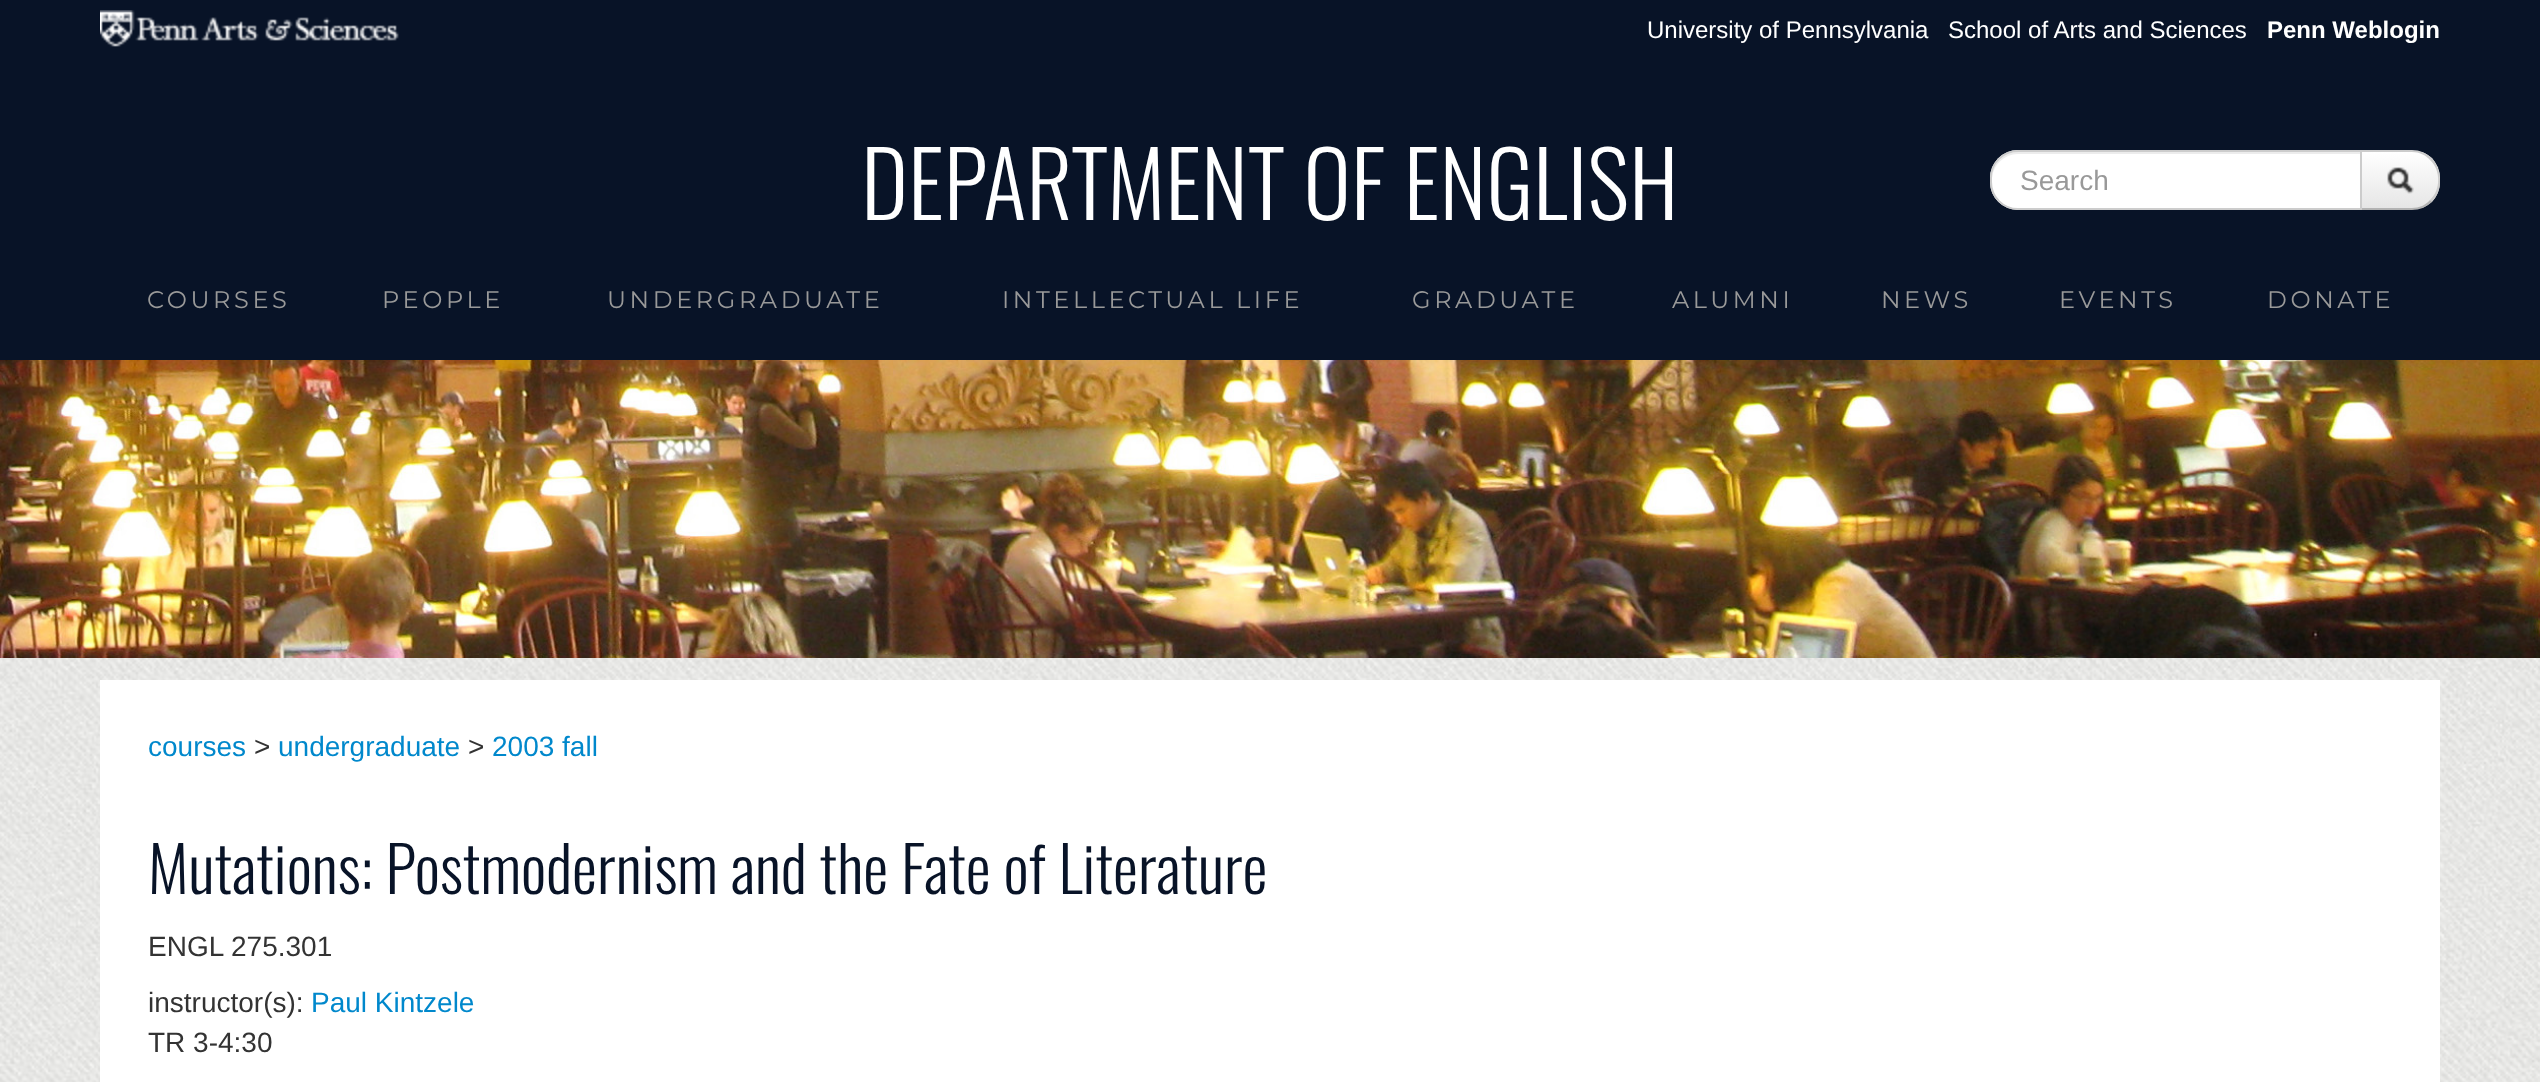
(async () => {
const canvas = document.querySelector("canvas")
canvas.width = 2540
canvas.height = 1082
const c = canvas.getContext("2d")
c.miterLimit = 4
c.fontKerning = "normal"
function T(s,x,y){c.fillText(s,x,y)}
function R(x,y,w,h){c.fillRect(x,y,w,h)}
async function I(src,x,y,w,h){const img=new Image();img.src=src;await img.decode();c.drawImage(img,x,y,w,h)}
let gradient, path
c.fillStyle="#fff"
R(0,0,2540,1082)
await I("1.png",0,658,2540,424)
c.fillStyle="#081327"
R(0,0,2540,360)
await I("2.png",100,10,299,37)
c.font="24px Liberation Sans"
c.fillStyle="#fff"
T("University of Pennsylvania",1647,38)
T("School of Arts and Sciences",1948,38)
c.font="bold 24px Liberation Sans"
T("Penn Weblogin",2267,38)
c.font="300 90px Oswald"
T("DEPARTMENT OF ENGLISH",861,220)
c.save()
c.beginPath()
c.roundRect(2360,150,80,60,[0,28,28,0])
c.clip()
gradient = c.createLinearGradient(2400,152,2400,208)
gradient.addColorStop(0,"#fff")
gradient.addColorStop(1,"#e6e6e6")
c.fillStyle = gradient
R(2362,152,78,56)
c.restore()
c.fillStyle="#ccc"
path = new Path2D("M2360 150l2 2h50c7 0 14 3 18 8l2-2c-6-5-12-8-20-8z")
c.fill(path)
path = new Path2D("M2440 182c0-9-2-17-8-24l-2 2c11 10 11 30 0 40l2 2c5-6 8-12 8-20z")
c.fill(path)
c.fillStyle="#b3b3b3"
path = new Path2D("M2412 210c8 0 14-3 20-8l-2-2c-4 5-11 8-18 8h-50l-2 2z")
c.fill(path)
c.fillStyle="#fff"
c.beginPath()
c.roundRect(1990,150,372,60,[28,0,0,28])
c.fill()
c.fillStyle="#ececec"
path = new Path2D("M2018 154h342v-2h-342c-14 0-26 12-26 26v2c0-14 12-26 26-26z")
c.fill(path)
c.beginPath()
c.roundRect(1991,151,370,58,[27,0,0,27])
c.strokeStyle="#ccc"
c.lineWidth=2
c.stroke()
c.font="28px Liberation Sans"
c.fillStyle="#999"
T("Search",2020,190)
await I("3.png",2387,167,27,27)
c.letterSpacing="3.6px"
c.font="100 24px Montserrat"
T("COURSES",147,308)
T("PEOPLE",382,308)
T("UNDERGRADUATE",607,308)
T("INTELLECTUAL LIFE",1002,308)
T("GRADUATE",1412,308)
T("ALUMNI",1672,308)
T("NEWS",1881,308)
T("EVENTS",2059,308)
T("DONATE",2267,308)
await I("4.png",0,360,2540,298)
c.fillStyle="#fff"
R(100,680,2340,402)
c.letterSpacing="0px"
c.font="28px Liberation Sans"
c.fillStyle="#08c"
T("courses",148,756)
c.fillStyle="#333"
T(">",254,756)
c.fillStyle="#08c"
T("undergraduate",278,756)
c.fillStyle="#333"
T(">",468,756)
c.fillStyle="#08c"
T("2003 fall",492,756)
c.font="300 63px Oswald"
c.fillStyle="#081327"
T("Mutations: Postmodernism and the Fate of Literature",148,894)
c.font="28px Liberation Sans"
c.fillStyle="#333"
T("ENGL 275.301",148,956)
T("instructor(s):",148,1012)
c.fillStyle="#08c"
T("Paul Kintzele",311,1012)
c.fillStyle="#333"
T("TR 3-4:30",148,1052)
})()
